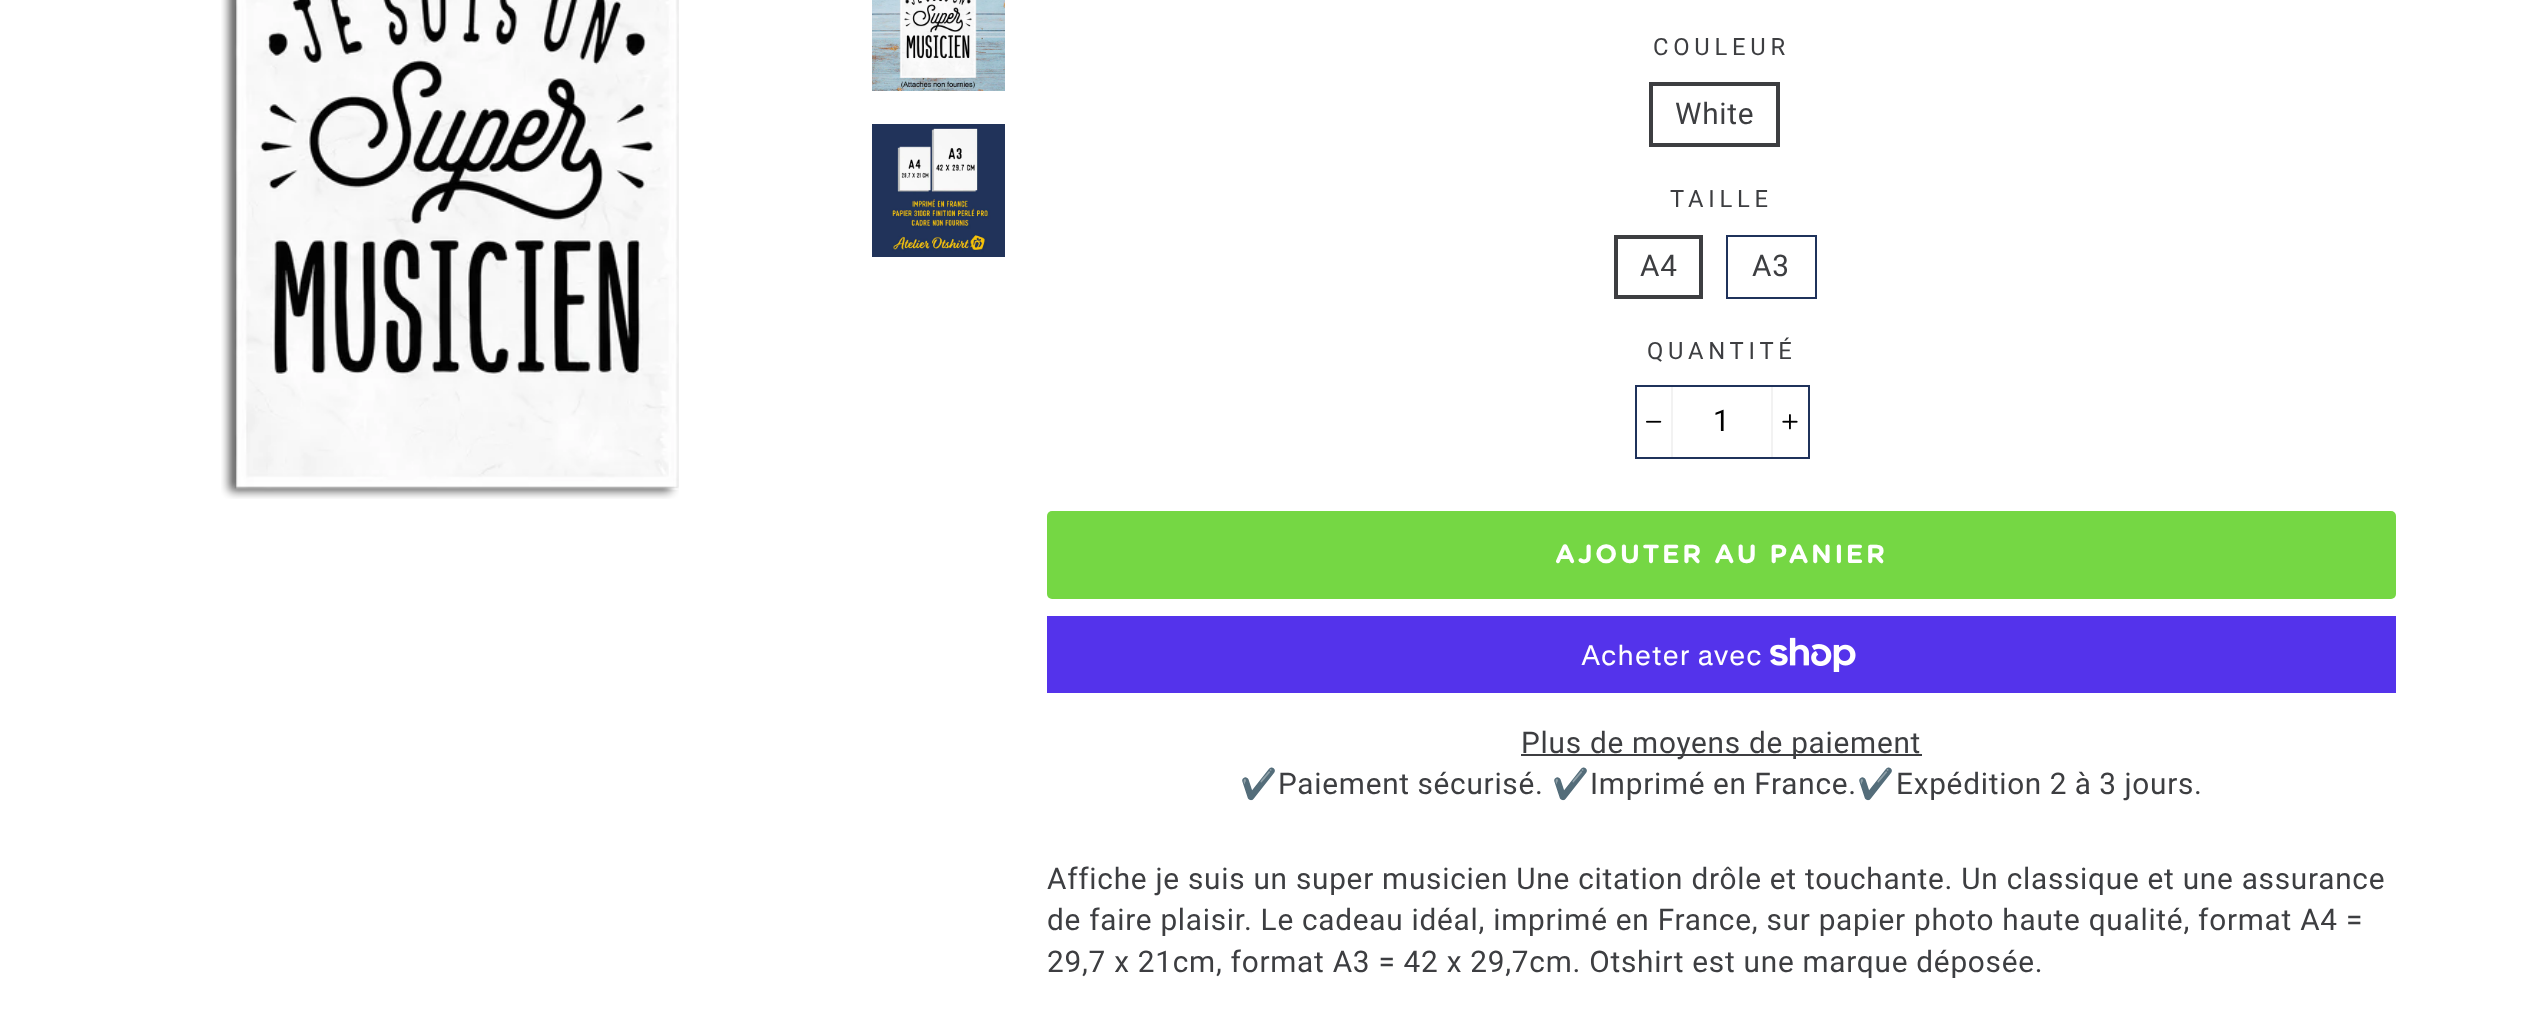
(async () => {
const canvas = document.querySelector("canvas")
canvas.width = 2543
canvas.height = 1019
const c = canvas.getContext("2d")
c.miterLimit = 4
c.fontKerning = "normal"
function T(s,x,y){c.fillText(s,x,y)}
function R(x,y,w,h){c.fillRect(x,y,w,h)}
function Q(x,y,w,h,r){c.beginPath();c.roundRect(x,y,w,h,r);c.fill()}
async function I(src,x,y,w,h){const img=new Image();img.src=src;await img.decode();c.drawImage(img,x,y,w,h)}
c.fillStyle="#fff"
R(0,0,2543,1019)
await I("1.png",221,0,458,499)
await I("2.png",872,0,133,91)
await I("3.png",872,124,133,133)
c.letterSpacing="4.75px"
c.font="23.75px Roboto"
c.fillStyle="#3d3e41"
T("COULEUR",1653,55)
c.strokeStyle="#3d3e41"
c.lineWidth=4
c.strokeRect(1651,84,127,61)
c.letterSpacing="0.75px"
c.font="29.75px Roboto"
T("White",1675,124)
c.letterSpacing="4.75px"
c.font="23.75px Roboto"
T("TAILLE",1670,207)
c.strokeRect(1616,237,85,60)
c.letterSpacing="0.75px"
c.font="29.75px Roboto"
T("A4",1640,276)
c.strokeStyle="#1f325b"
c.lineWidth=2
c.strokeRect(1727,236,89,62)
T("A3",1752,276)
c.letterSpacing="4.75px"
c.font="23.75px Roboto"
T("QUANTITÉ",1647,359)
c.strokeRect(1636,386,173,72)
c.fillStyle="#f2f2f2"
R(1671,387,2,70)
await I("4.png",1646,420,16,3)
c.letterSpacing="0.75px"
c.font="29.75px Roboto"
c.fillStyle="#000"
T("1",1713,431)
c.fillStyle="#f2f2f2"
R(1771,387,2,70)
await I("5.png",1782,414,16,16)
c.fillStyle="#75d744"
Q(1047,511,1349,88,5)
c.letterSpacing="2.6px"
c.font="bold 26.25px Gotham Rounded"
c.fillStyle="#fff"
T("AJOUTER AU PANIER",1555,563)
c.fillStyle="#5433eb"
R(1047,616,1349,77)
c.letterSpacing="0.75px"
c.font="28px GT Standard"
c.fillStyle="#fff"
T("Acheter avec",1581,665)
await I("6.png",1770,637,86,35)
c.fillStyle="#3d3e41"
R(1521,754,401,2)
c.font="29.75px Roboto"
T("Plus de moyens de paiement",1521,753)
c.font="29.75px Noto Color Emoji"
T("✔️",1240,794)
c.wordSpacing="-0.5px"
c.font="29.75px Roboto"
T("Paiement sécurisé.",1278,794)
c.wordSpacing="0px"
c.font="29.75px Noto Color Emoji"
T("✔️",1552,794)
c.wordSpacing="-0.5px"
c.font="29.75px Roboto"
T("Imprimé en France.",1590,794)
c.wordSpacing="0px"
c.font="29.75px Noto Color Emoji"
T("✔️",1857,794)
c.wordSpacing="-0.5px"
c.font="29.75px Roboto"
T("Expédition 2 à 3 jours.",1896,794)
c.wordSpacing="0px"
T("Affiche je suis un super musicien Une citation drôle et touchante. Un classique et une assurance",1047,889)
T("de faire plaisir. Le cadeau idéal, imprimé en France, sur papier photo haute qualité, format A4 =",1047,930)
T("29,7 x 21cm, format A3 = 42 x 29,7cm. Otshirt est une marque déposée.",1047,972)
})()
